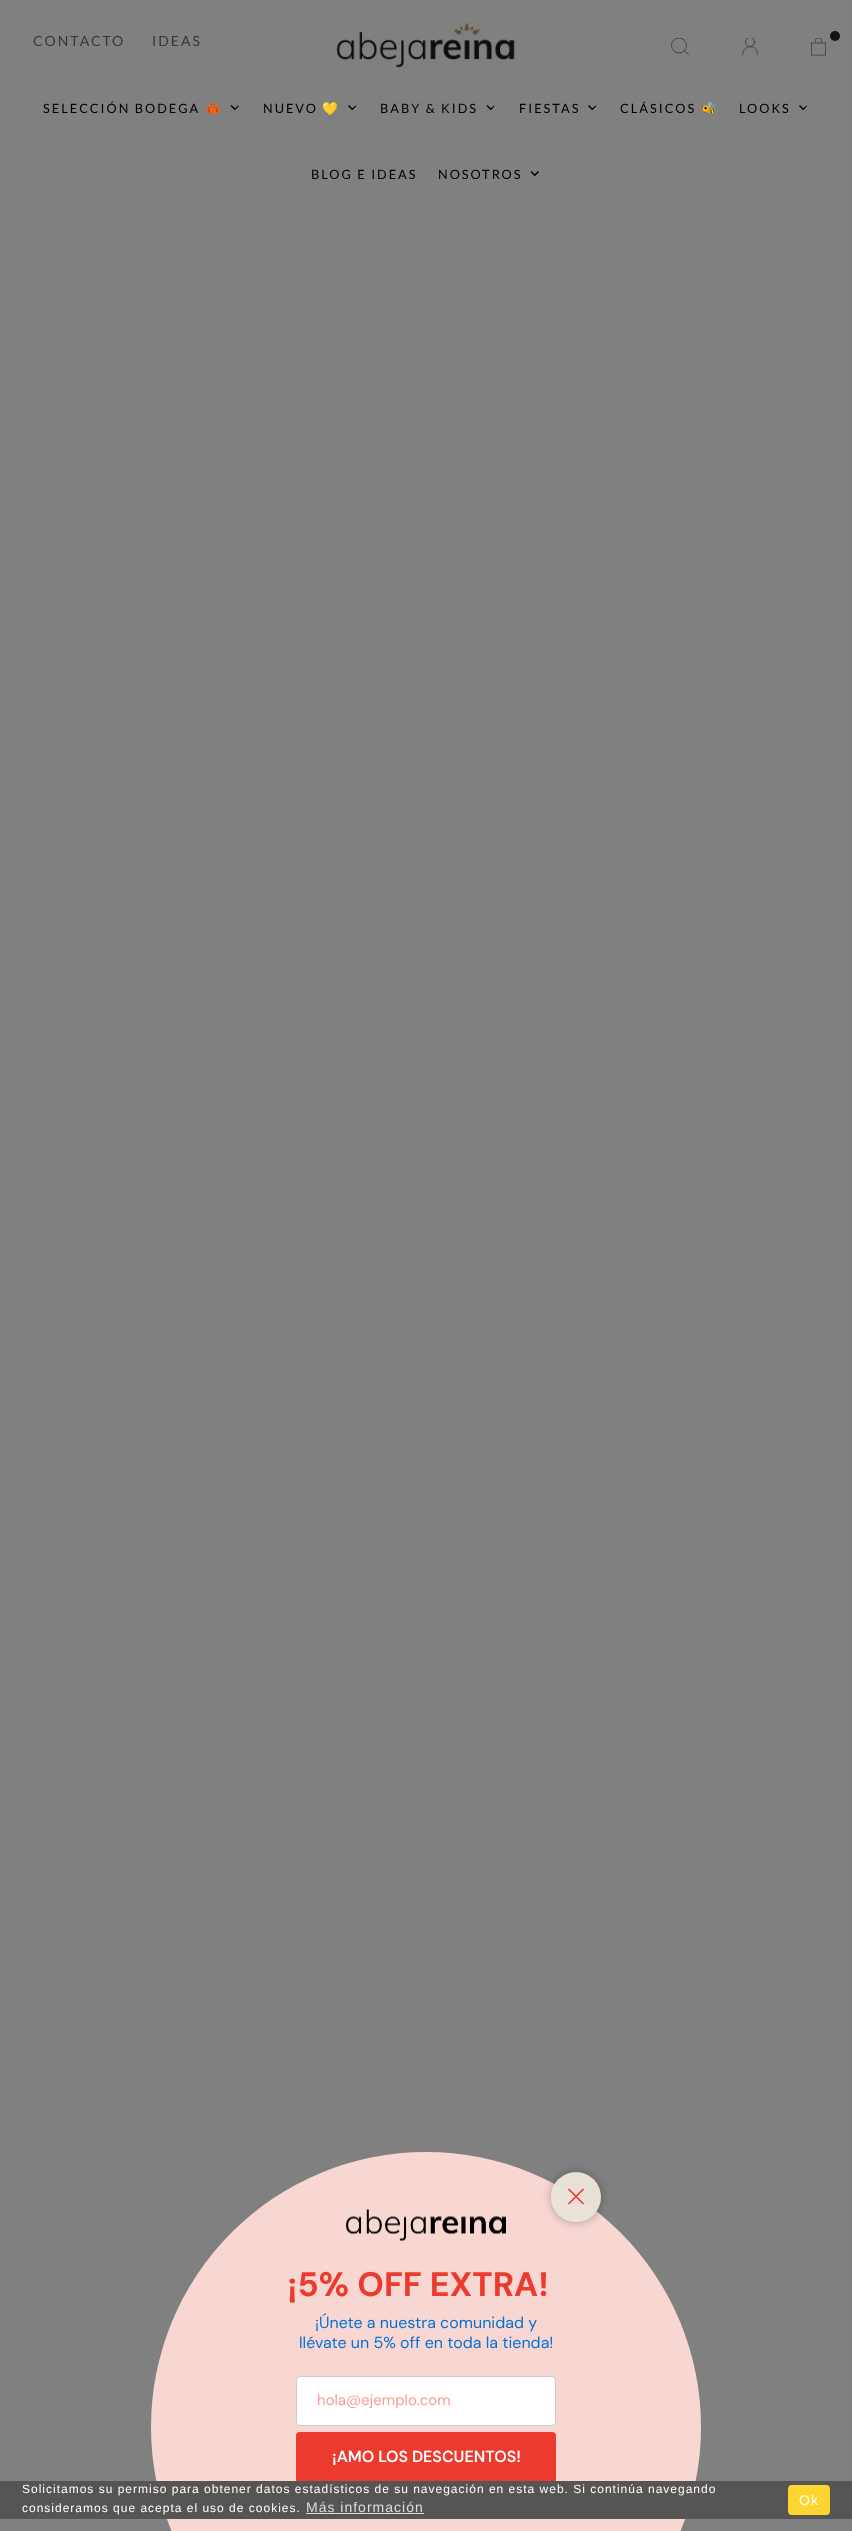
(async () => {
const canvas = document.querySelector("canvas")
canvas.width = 852
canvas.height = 2531
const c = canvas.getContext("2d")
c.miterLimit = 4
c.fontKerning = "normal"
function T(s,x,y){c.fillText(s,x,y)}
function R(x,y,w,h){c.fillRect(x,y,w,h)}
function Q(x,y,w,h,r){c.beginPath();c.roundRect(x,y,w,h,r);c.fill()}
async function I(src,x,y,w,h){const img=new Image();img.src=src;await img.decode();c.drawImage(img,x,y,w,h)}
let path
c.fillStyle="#808080"
R(0,0,852,2531)
c.letterSpacing="2px"
c.font="14px Lato"
c.fillStyle="#363636"
T("CONTACTO",33,46)
T("IDEAS",152,46)
await I("1.png",336,22,179,46)
c.save()
c.beginPath()
c.rect(671,38,18,17)
c.clip()
c.beginPath()
c.arc(679,45.5,7.5,0,7)
c.strokeStyle="#363636"
c.lineWidth=0.8
c.stroke()
c.restore()
path = new Path2D("M688.5 54.5l-4.5-4")
c.strokeStyle="#363636"
c.lineWidth=0.8
c.lineCap="round"
c.lineJoin="round"
c.stroke(path)
c.save()
c.beginPath()
c.rect(742,38,16,18)
c.clip()
path = new Path2D("M742.5 55c.5-11 14.5-11.5 15.5 0")
c.stroke(path)
c.beginPath()
c.arc(750,42,4.5,0,7)
c.stroke()
c.restore()
c.fillStyle="#111416"
c.beginPath()
c.arc(835,36,5,0,7)
c.fill()
await I("2.png",811,38,15,18)
c.font="12.75px Lato"
c.fillStyle="#000"
T("SELECCIÓN BODEGA",43,113)
c.font="12.75px Noto Color Emoji"
T("🦀",205,113)
path = new Path2D("M238 105.5l1 .5l-4 4l-.5-1z")
c.fill(path)
path = new Path2D("M231.5 105l4 4l-1 1l-4-4z")
c.fill(path)
c.font="12.75px Lato"
T("NUEVO",263,113)
c.font="12.75px Noto Color Emoji"
T("💛",322,113)
path = new Path2D("M355.5 105.5l1 .5l-4 4l-1-1z")
c.fill(path)
path = new Path2D("M349 105l4 4l-1 1l-4-4z")
c.fill(path)
c.font="12.75px Lato"
T("BABY & KIDS",380,113)
path = new Path2D("M494 105.5l.5 .5l-3.5 4l-1-1z")
c.fill(path)
path = new Path2D("M487.5 105l4 4l-1 1l-4-4z")
c.fill(path)
T("FIESTAS",519,113)
path = new Path2D("M595.5 105.5l1 .5l-4 4l-1-1z")
c.fill(path)
path = new Path2D("M589 105l4 4l-1 1l-4-4z")
c.fill(path)
T("CLÁSICOS",620,113)
c.font="12.75px Noto Color Emoji"
T("🐝",701,113)
c.font="12.75px Lato"
T("LOOKS",739,113)
path = new Path2D("M806.5 105.5l.5 .5l-3.5 4l-1-1z")
c.fill(path)
path = new Path2D("M800 105l4 4l-1 1l-4-4z")
c.fill(path)
T("BLOG E IDEAS",311,179)
T("NOSOTROS",438,179)
path = new Path2D("M538 171l1 1l-4 4l-1-1z")
c.fill(path)
path = new Path2D("M531.5 171l4 4l-1 1l-4-4z")
c.fill(path)
c.fillStyle="#f8d7d3"
c.beginPath()
c.arc(426,2427,275,0,7)
c.fill()
c.save()
path = new Path2D("M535 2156h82v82h-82zm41 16c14 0 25 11 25 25c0 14-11 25-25 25c-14 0-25-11-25-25c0-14 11-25 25-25z")
c.clip(path,"evenodd")
c.fillStyle="#0000004d"
c.filter="blur(5px)"
c.beginPath()
c.roundRect(551,2172,50,50,25)
c.fill()
c.filter="none"
c.restore()
c.fillStyle="#eae3d8f7"
c.beginPath()
c.arc(576,2197,25,0,7)
c.fill()
path = new Path2D("M569 2189.5l14 14m0-14l-14 14")
c.strokeStyle="#ec3a2e"
c.lineWidth=1.7
c.lineJoin="miter"
c.stroke(path)
await I("3.png",346,2209,160,32)
c.letterSpacing="0px"
c.font="bold 34px DM Sans"
c.fillStyle="#ec3a2e"
T("¡5% OFF EXTRA!",287,2296)
c.font="16px DM Sans"
c.fillStyle="#0571d3"
T("¡Únete a nuestra comunidad y",315,2328)
T("llévate un 5% off en toda la tienda!",299,2348)
c.fillStyle="#fff"
c.beginPath()
c.roundRect(296.5,2376.5,259,49,3.5)
c.fill()
c.strokeStyle="#ccc"
c.lineWidth=1
c.stroke()
c.font="15px DM Sans"
c.fillStyle="#f69d97"
T("hola@ejemplo.com",317,2405)
c.fillStyle="#ec3a2e"
Q(296,2432,260,52,4)
c.font="600 16px DM Sans"
c.fillStyle="#fff"
T("¡AMO LOS DESCUENTOS!",332,2462)
c.fillStyle="#575454"
R(0,2481,852,38)
c.letterSpacing="1px"
c.font="12px Liberation Sans"
c.fillStyle="#fff"
T("Solicitamos su permiso para obtener datos estadísticos de su navegación en esta web. Si continúa navegando",22,2493)
T("consideramos que acepta el uso de cookies.",22,2512)
c.font="14px Liberation Sans"
c.fillStyle="#ddd"
T("Más información",306,2512)
R(306,2513,118,1)
c.fillStyle="#fed530"
Q(788,2485,42,30,4)
c.fillStyle="#fff"
T("Ok",799,2505)
})()
